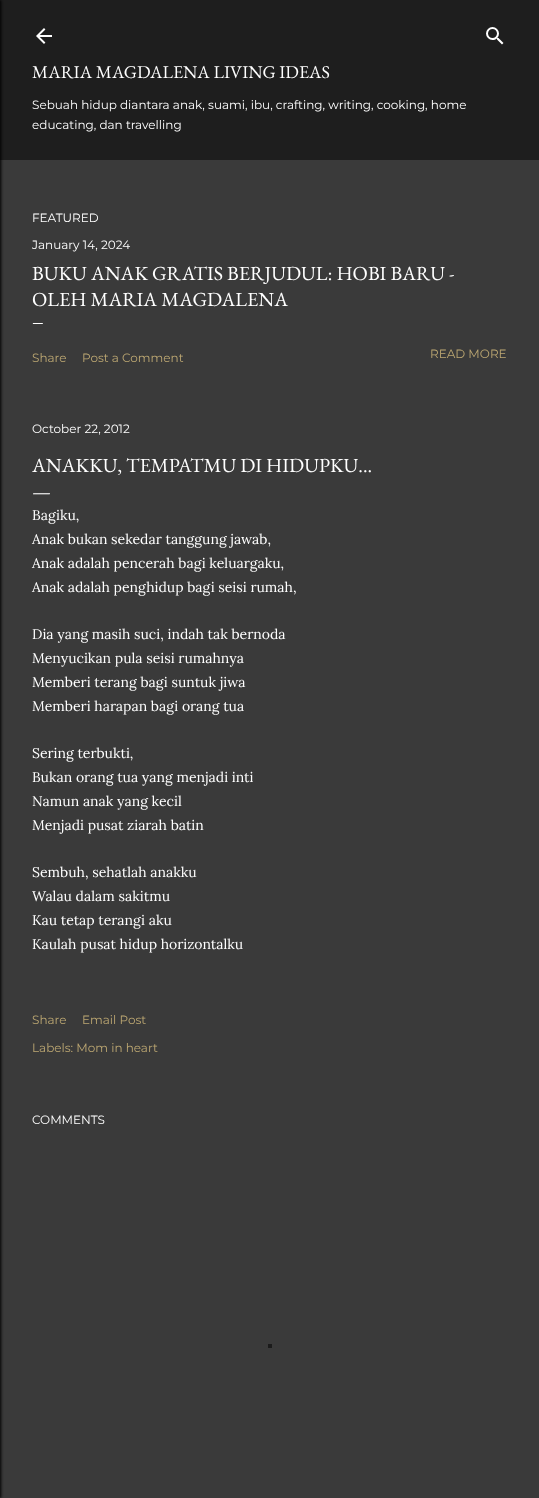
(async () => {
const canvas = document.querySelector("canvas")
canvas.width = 539
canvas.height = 1498
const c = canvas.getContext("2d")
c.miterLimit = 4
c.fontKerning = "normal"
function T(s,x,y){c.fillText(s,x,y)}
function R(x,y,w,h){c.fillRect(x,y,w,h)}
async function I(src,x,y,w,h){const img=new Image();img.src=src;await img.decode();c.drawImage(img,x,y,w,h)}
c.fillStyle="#3a3a3a"
R(0,0,539,1498)
c.fillStyle="#1e1e1e"
R(0,0,539,160)
c.fillStyle="#000"
c.filter="blur(1.5px)"
c.beginPath()
c.rect(-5,0,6,1498)
c.fill()
c.filter="none"
await I("1.png",36,28,16,16)
await I("2.png",486,27,18,18)
c.font="18px EB Garamond"
c.fillStyle="#fff"
T("MARIA MAGDALENA LIVING IDEAS",32,78)
c.font="12px Montserrat"
T("Sebuah hidup diantara anak, suami, ibu, crafting, writing, cooking, home",32,109)
T("educating, dan travelling",32,129)
T("FEATURED",32,222)
T("January 14, 2024",32,249)
c.font="20px EB Garamond"
T("BUKU ANAK GRATIS BERJUDUL: HOBI BARU -",32,280)
T("OLEH MARIA MAGDALENA",32,306)
c.font="14px Lora"
T("—",32,328)
c.font="12px Montserrat"
c.fillStyle="#bca772"
T("Share",32,362)
T("Post a Comment",82,362)
T("READ MORE",430,358)
c.fillStyle="#fff"
T("October 22, 2012",32,433)
c.font="20px EB Garamond"
T("ANAKKU, TEMPATMU DI HIDUPKU...",32,472)
T("—",32,498)
c.font="14px Lora"
T("Bagiku,",32,520)
T("Anak bukan sekedar tanggung jawab,",32,544)
T("Anak adalah pencerah bagi keluargaku,",32,568)
T("Anak adalah penghidup bagi seisi rumah,",32,592)
T("Dia yang masih suci, indah tak bernoda",32,639)
T("Menyucikan pula seisi rumahnya",32,663)
T("Memberi terang bagi suntuk jiwa",32,687)
T("Memberi harapan bagi orang tua",32,711)
T("Sering terbukti,",32,758)
T("Bukan orang tua yang menjadi inti",32,782)
T("Namun anak yang kecil",32,806)
T("Menjadi pusat ziarah batin",32,830)
T("Sembuh, sehatlah anakku",32,877)
T("Walau dalam sakitmu",32,901)
T("Kau tetap terangi aku",32,925)
T("Kaulah pusat hidup horizontalku",32,949)
c.font="12px Montserrat"
c.fillStyle="#bca772"
T("Share",32,1024)
T("Email Post",82,1024)
T("Labels: Mom in heart",32,1052)
c.fillStyle="#fff"
T("COMMENTS",32,1124)
c.fillStyle="#1b1b1b"
R(268,1344,4,4)
})()
